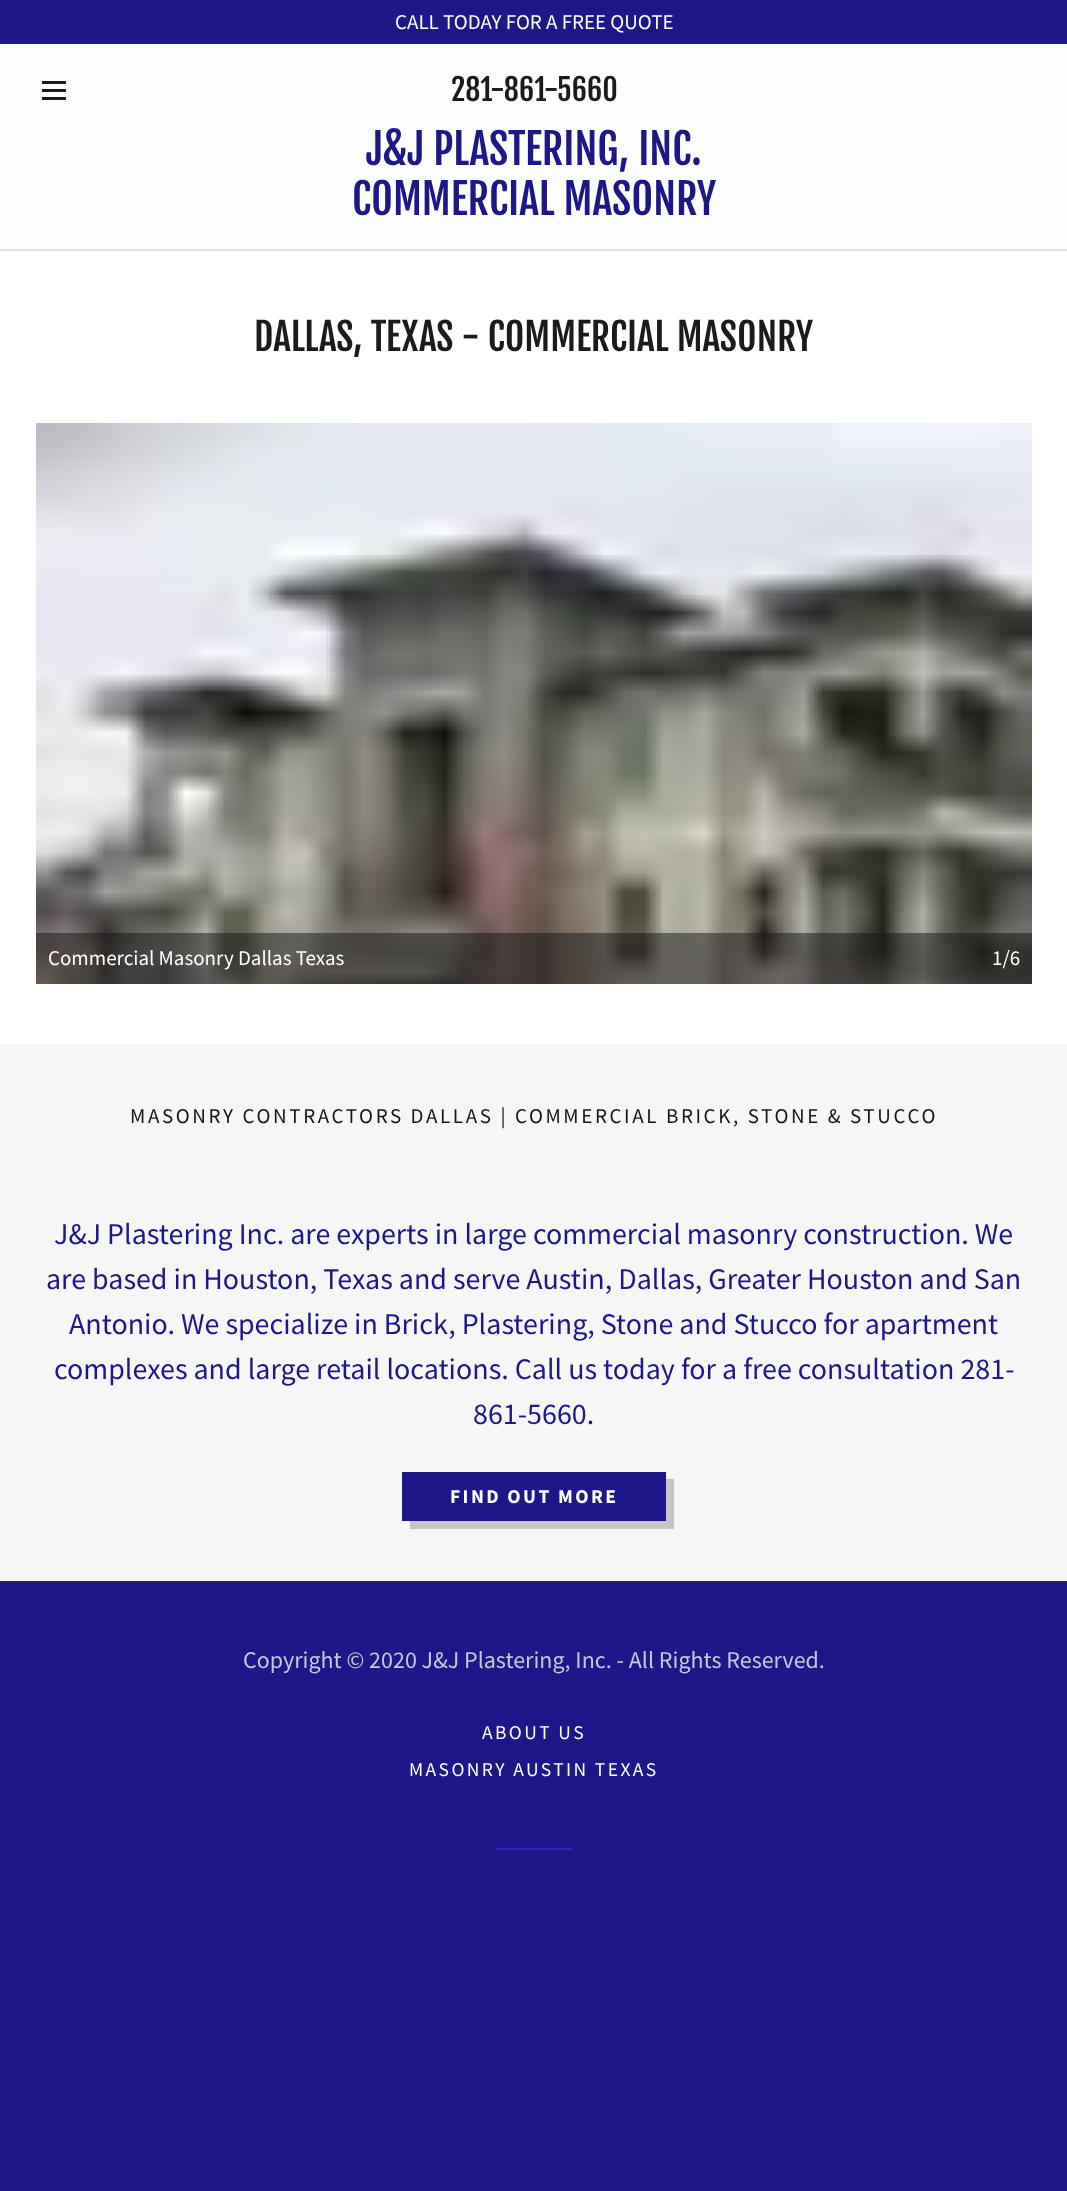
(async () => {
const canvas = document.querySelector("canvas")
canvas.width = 1067
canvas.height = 2191
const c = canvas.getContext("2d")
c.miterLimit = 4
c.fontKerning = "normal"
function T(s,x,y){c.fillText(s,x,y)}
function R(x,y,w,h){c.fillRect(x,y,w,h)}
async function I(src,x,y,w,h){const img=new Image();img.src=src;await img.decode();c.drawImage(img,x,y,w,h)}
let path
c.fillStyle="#1d178a"
R(0,0,1067,2191)
c.font="21px Source Sans Pro"
c.fillStyle="#fff"
T("CALL TODAY FOR A FREE QUOTE",395,29)
c.fillStyle="#fefefe"
R(0,44,1067,205)
c.fillStyle="#1b1b1b"
R(42,81,24,3)
R(42,89,24,3)
R(42,97,24,3)
c.font="30px Fjalla One"
T("281-861-5660",451,101)
c.font="42px Fjalla One"
c.fillStyle="#1d178a"
T("J&J PLASTERING, INC.",366,165)
T("COMMERCIAL MASONRY",352,215)
c.fillStyle="#e2e2e2"
R(0,249,1067,2)
c.fillStyle="#fff"
R(0,251,1067,793)
c.font="37.5px Fjalla One"
c.fillStyle="#1b1b1b"
T("DALLAS, TEXAS - COMMERCIAL MASONRY",254,351)
await I("1.png",36,423,996,561)
c.fillStyle="#16161680"
R(36,933,944,51)
c.font="21px Source Sans Pro"
c.fillStyle="#fff"
T("Commercial Masonry Dallas Texas",48,965)
c.fillStyle="#16161680"
R(980,933,52,51)
c.fillStyle="#fff"
T("1/6",992,965)
c.fillStyle="#f6f6f6"
R(0,1044,1067,537)
c.letterSpacing="2.62px"
c.fillStyle="#151515"
T("MASONRY CONTRACTORS DALLAS | COMMERCIAL BRICK, STONE & STUCCO",130,1123)
c.letterSpacing="0px"
c.font="30px Source Sans Pro"
c.fillStyle="#1d178a"
T("J&J Plastering Inc. are experts in large commercial masonry construction. We",54,1244)
T("are based in Houston, Texas and serve Austin, Dallas, Greater Houston and San",46,1289)
T("Antonio. We specialize in Brick, Plastering, Stone and Stucco for apartment",69,1334)
T("complexes and large retail locations. Call us today for a free consultation 281-",54,1379)
T("861-5660.",473,1424)
R(402,1472,264,49)
c.fillStyle="#c5c5c5"
path = new Path2D("M410 1521v8h264v-50h-8v42z")
c.fill(path)
c.letterSpacing="2.4px"
c.font="bold 19.5px Source Sans Pro"
c.fillStyle="#fff"
T("FIND OUT MORE",450,1503)
c.letterSpacing="0px"
c.font="24px Source Sans Pro"
c.fillStyle="#c8c8d4"
T("Copyright © 2020 J&J Plastering, Inc. - All Rights Reserved.",243,1668)
c.letterSpacing="2.4px"
c.font="19.5px Source Sans Pro"
c.fillStyle="#fff"
T("ABOUT US",482,1739)
T("MASONRY AUSTIN TEXAS",409,1776)
c.fillStyle="#2d25c2"
R(497,1848,75,2)
})()
